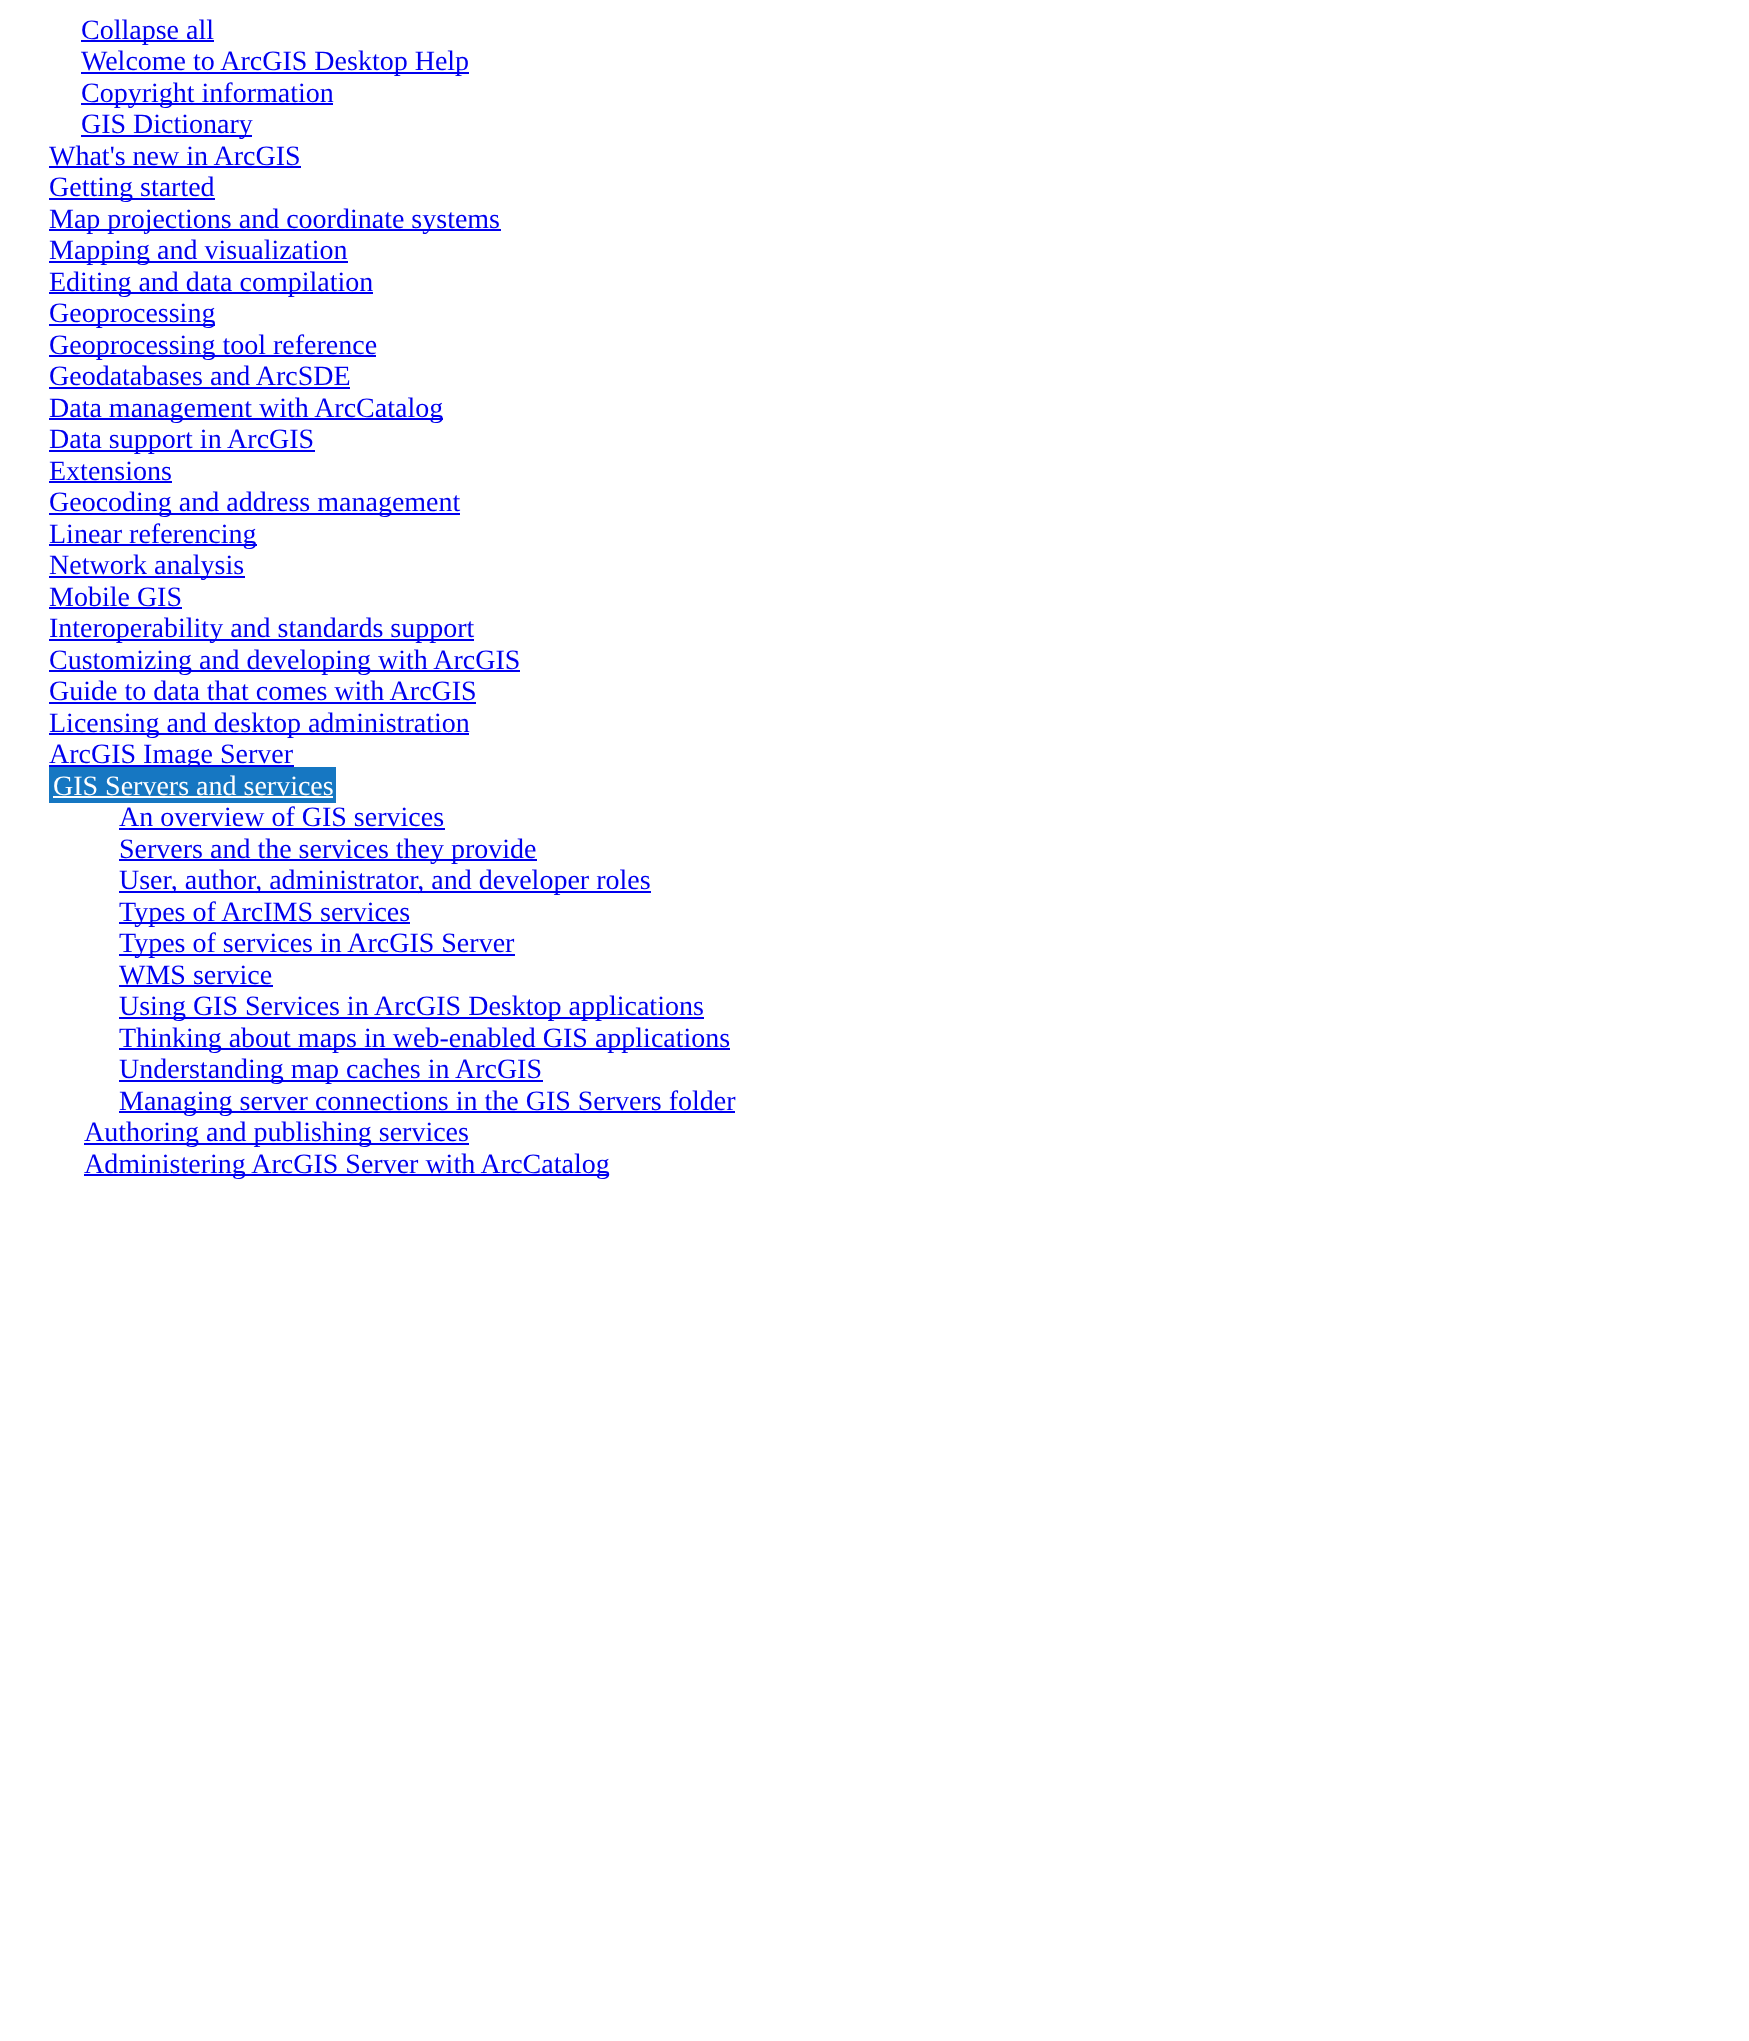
(async () => {
const canvas = document.querySelector("canvas")
canvas.width = 1749
canvas.height = 2041
const c = canvas.getContext("2d")
c.miterLimit = 4
c.fontKerning = "normal"
function T(s,x,y){c.fillText(s,x,y)}
function R(x,y,w,h){c.fillRect(x,y,w,h)}
c.fillStyle="#fff"
R(0,0,1749,2041)
c.fillStyle="#00e"
R(81,40,133,2)
c.font="28px Liberation Serif"
T("Collapse all",81,39)
R(81,72,388,2)
T("Welcome to ArcGIS Desktop Help",81,70)
R(81,103,252,2)
T("Copyright information",81,102)
R(81,135,171,2)
T("GIS Dictionary",81,133)
T("What's new in ArcGIS",49,165)
R(49,166,252,2)
R(49,198,166,2)
T("Getting started",49,196)
R(49,229,452,2)
T("Map projections and coordinate systems",49,228)
R(49,261,299,2)
T("Mapping and visualization",49,259)
R(49,292,324,2)
T("Editing and data compilation",49,291)
R(49,324,166,2)
T("Geoprocessing",49,322)
R(49,355,327,2)
T("Geoprocessing tool reference",49,354)
T("Geodatabases and ArcSDE",49,385)
R(49,387,301,2)
R(49,418,394,2)
T("Data management with ArcCatalog",49,417)
R(49,450,266,2)
T("Data support in ArcGIS",49,448)
T("Extensions",49,480)
R(49,481,123,2)
R(49,513,411,2)
T("Geocoding and address management",49,511)
R(49,544,208,2)
T("Linear referencing",49,543)
R(49,576,196,2)
T("Network analysis",49,574)
T("Mobile GIS",49,606)
R(49,607,133,2)
R(49,639,425,2)
T("Interoperability and standards support",49,637)
R(49,670,471,2)
T("Customizing and developing with ArcGIS",49,669)
T("Guide to data that comes with ArcGIS",49,700)
R(49,702,427,2)
R(49,733,420,2)
T("Licensing and desktop administration",49,732)
R(49,765,245,2)
T("ArcGIS Image Server",49,763)
c.fillStyle="#1677c2"
R(49,767,287,36)
c.fillStyle="#fff"
T("GIS Servers and services",53,795)
R(53,796,280,2)
c.fillStyle="#00e"
T("An overview of GIS services",119,826)
R(119,828,326,2)
R(119,859,418,2)
T("Servers and the services they provide",119,858)
R(119,891,532,2)
T("User, author, administrator, and developer roles",119,889)
R(119,922,291,2)
T("Types of ArcIMS services",119,921)
R(119,954,396,2)
T("Types of services in ArcGIS Server",119,952)
T("WMS service",119,984)
R(119,985,154,2)
R(119,1017,585,2)
T("Using GIS Services in ArcGIS Desktop applications",119,1015)
R(119,1048,611,2)
T("Thinking about maps in web-enabled GIS applications",119,1047)
R(119,1080,424,2)
T("Understanding map caches in ArcGIS",119,1078)
R(119,1111,616,2)
T("Managing server connections in the GIS Servers folder",119,1110)
R(84,1143,385,2)
T("Authoring and publishing services",84,1141)
R(84,1174,525,2)
T("Administering ArcGIS Server with ArcCatalog",84,1173)
})()
